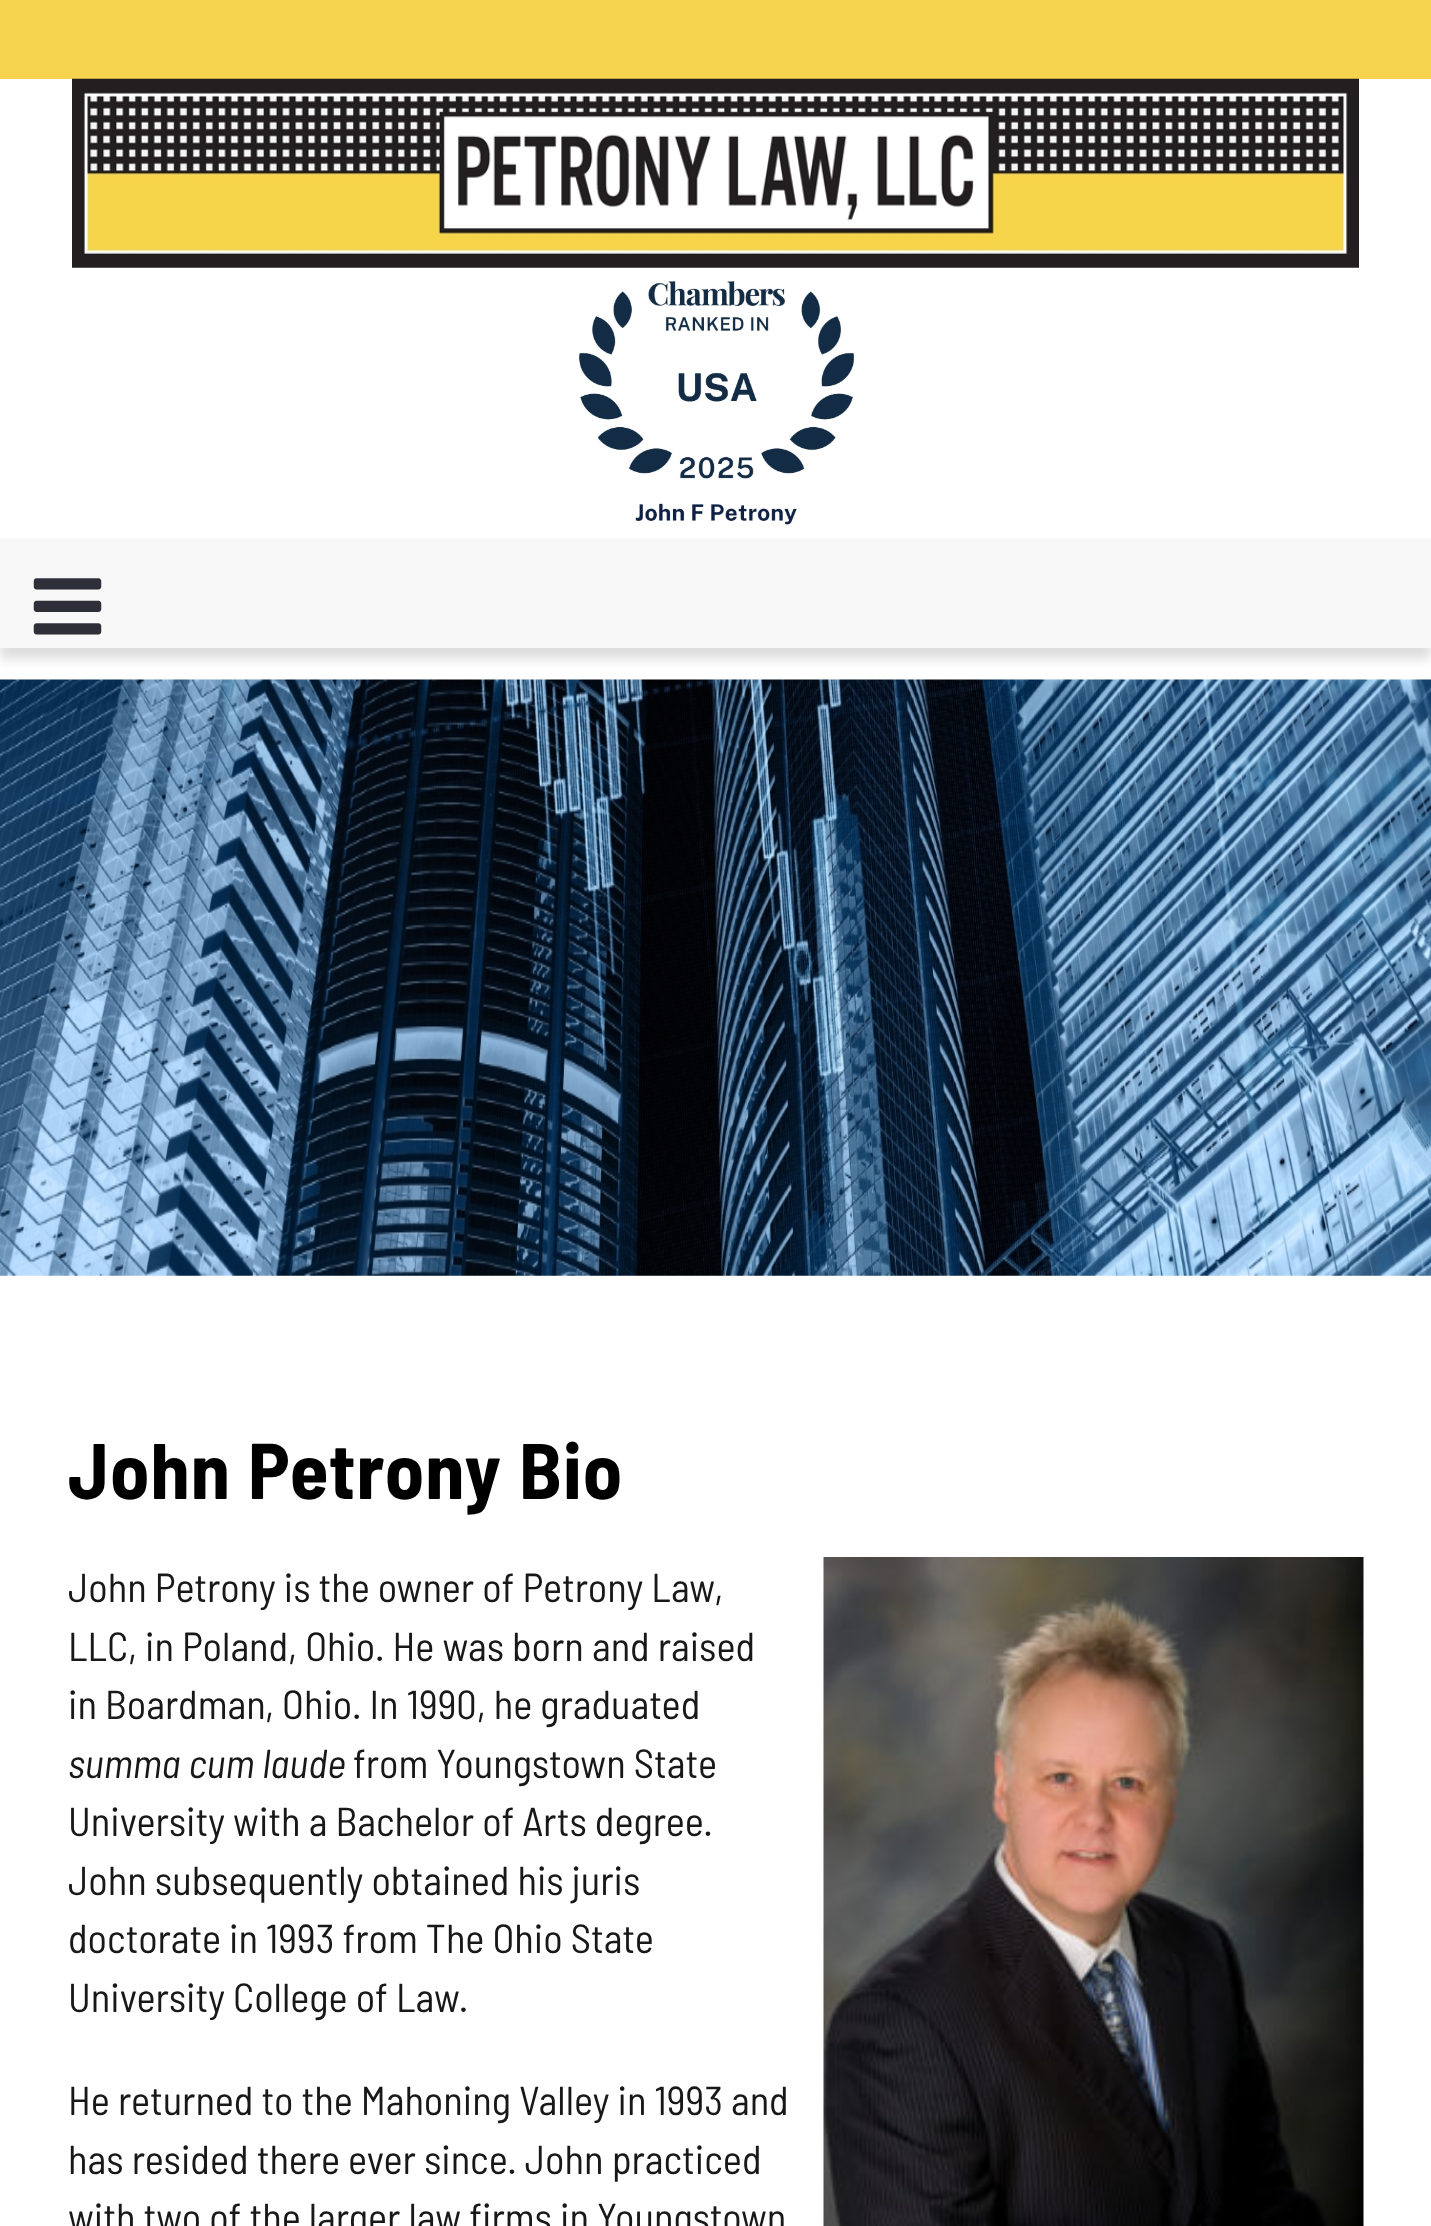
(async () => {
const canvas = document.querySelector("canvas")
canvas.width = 1431
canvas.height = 2226
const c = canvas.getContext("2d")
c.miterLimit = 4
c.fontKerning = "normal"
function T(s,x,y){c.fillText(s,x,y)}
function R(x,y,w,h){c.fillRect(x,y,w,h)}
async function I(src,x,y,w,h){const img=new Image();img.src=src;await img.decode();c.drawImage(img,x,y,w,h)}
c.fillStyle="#fff"
R(0,0,1431,2226)
c.fillStyle="#f6d44d"
R(0,0,1431,79)
await I("1.png",72,78,1287,190)
await I("2.png",578,280,276,245)
c.fillStyle="#0d0d0d24"
c.filter="blur(5.5px)"
c.beginPath()
c.rect(0,549,1431,110)
c.fill()
c.filter="none"
c.fillStyle="#f8f8f8"
R(0,538,1431,110)
await I("3.png",33,578,69,57)
await I("4.png",0,679,1431,597)
c.letterSpacing="1.1px"
c.font="bold 78.75px Barlow Semi Condensed"
c.fillStyle="#000"
T("John Petrony Bio",68,1499)
c.letterSpacing="0px"
c.font="40.5px Barlow Semi Condensed"
c.fillStyle="#181818"
T("John Petrony is the owner of Petrony Law,",68,1602)
await I("5.png",823,1557,541,669)
T("LLC, in Poland, Ohio. He was born and raised",68,1661)
T("in Boardman, Ohio. In 1990, he graduated",68,1719)
c.font="italic 40.5px Barlow Semi Condensed"
T("summa cum laude",68,1778)
c.font="40.5px Barlow Semi Condensed"
T("from Youngstown State",353,1778)
T("University with a Bachelor of Arts degree.",68,1836)
T("John subsequently obtained his juris",68,1895)
T("doctorate in 1993 from The Ohio State",68,1953)
T("University College of Law.",68,2012)
T("He returned to the Mahoning Valley in 1993 and",68,2115)
T("has resided there ever since. John practiced",68,2174)
T("with two of the larger law firms in Youngstown",68,2232)
})()
